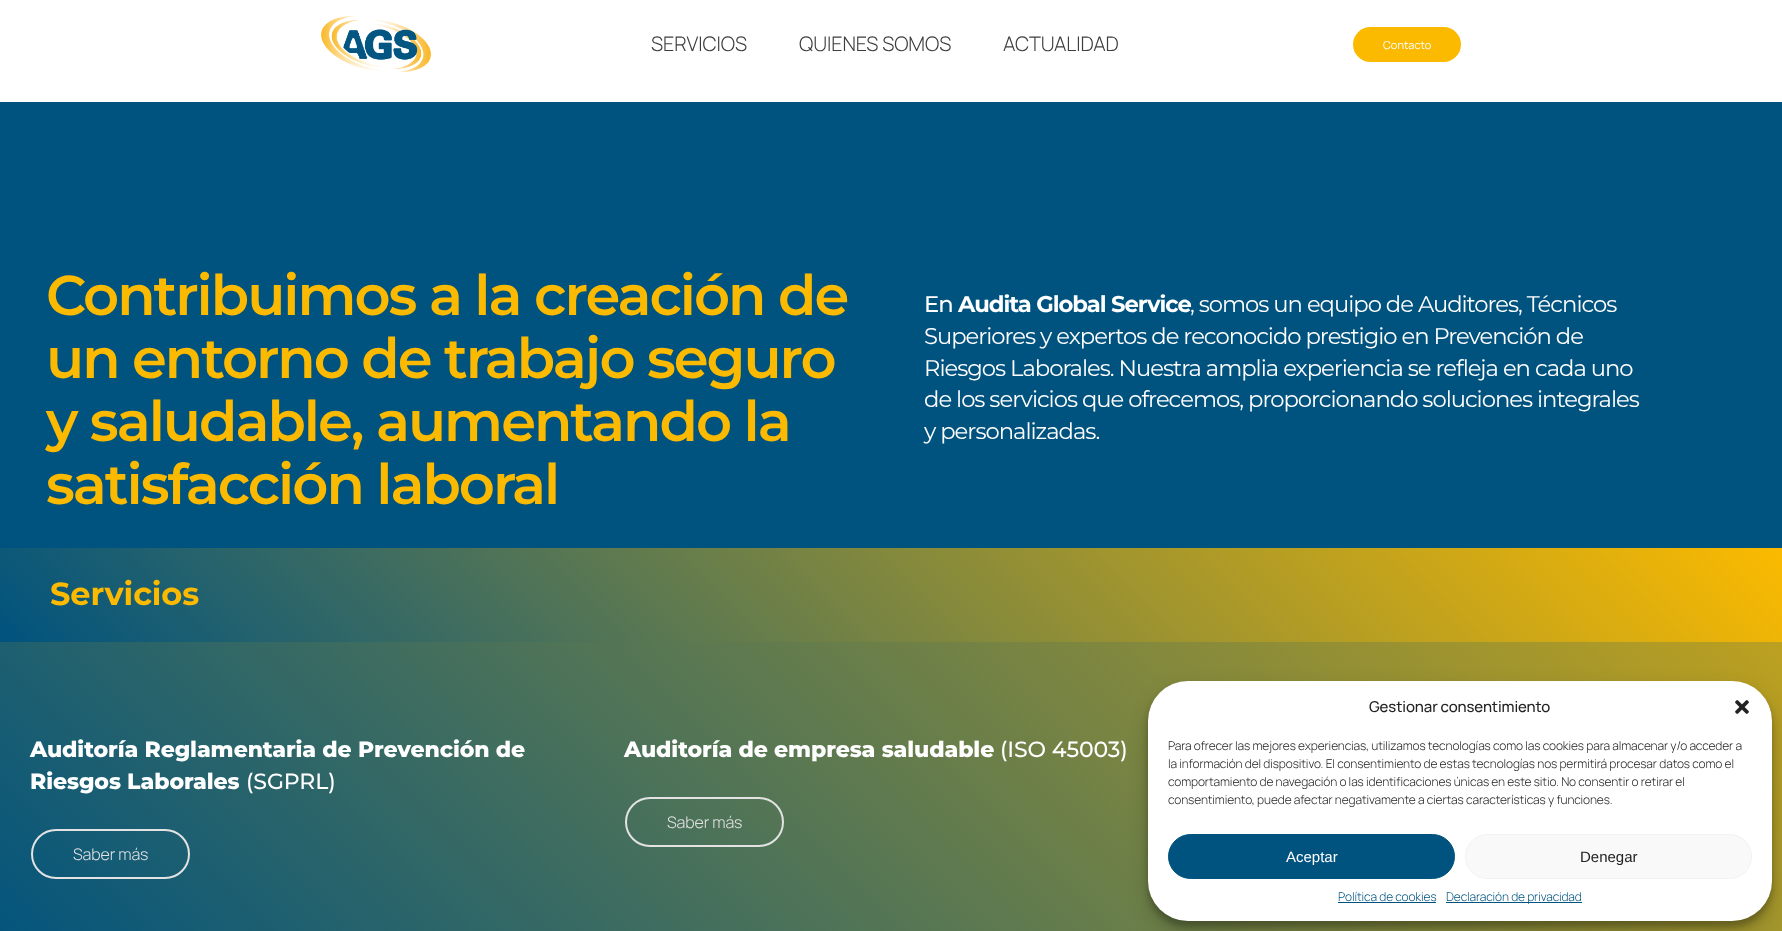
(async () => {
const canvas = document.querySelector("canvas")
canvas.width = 1782
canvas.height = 931
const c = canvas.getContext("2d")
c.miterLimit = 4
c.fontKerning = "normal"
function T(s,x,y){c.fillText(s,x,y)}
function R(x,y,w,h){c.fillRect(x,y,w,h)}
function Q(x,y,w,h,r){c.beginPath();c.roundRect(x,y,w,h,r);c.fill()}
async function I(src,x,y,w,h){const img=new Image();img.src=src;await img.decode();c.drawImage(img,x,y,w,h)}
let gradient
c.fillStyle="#fff"
R(0,0,1782,931)
await I("1.png",321,16,110,56)
c.letterSpacing="-0.1px"
c.font="300 20px Manrope"
c.fillStyle="#3e3d3d"
T("SERVICIOS",651,51)
T("QUIENES SOMOS",799,51)
T("ACTUALIDAD",1003,51)
c.fillStyle="#fbba00"
Q(1353,27,108,35,17.5)
c.letterSpacing="0px"
c.font="11px Manrope"
c.fillStyle="#fff"
T("Contacto",1383,49)
c.fillStyle="#00537f"
R(0,102,1782,446)
c.letterSpacing="-2px"
c.font="100 56px Montserrat"
c.fillStyle="#fbba00"
T("Contribuimos a la creación de",46,315)
T("un entorno de trabajo seguro",46,378)
T("y saludable, aumentando la",46,441)
T("satisfacción laboral",46,504)
c.letterSpacing="-1px"
c.font="500 22.7px Montserrat"
c.fillStyle="#fff"
T("En",924,312)
c.font="bold 22.7px Montserrat"
T("Audita Global Service",958,312)
c.font="22.7px Montserrat"
T(", somos un equipo de Auditores, Técnicos",1190,312)
T("Superiores y expertos de reconocido prestigio en Prevención de",924,344)
T("Riesgos Laborales. Nuestra amplia experiencia se refleja en cada uno",924,376)
T("de los servicios que ofrecemos, proporcionando soluciones integrales",924,407)
T("y personalizadas.",924,439)
gradient = c.createLinearGradient(422,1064,1360,126)
gradient.addColorStop(0,"#00537f")
gradient.addColorStop(1,"#fbba00")
c.fillStyle = gradient
R(0,548,1782,94)
c.letterSpacing="-0.1px"
c.font="bold 32px Montserrat"
c.fillStyle="#fbba00"
T("Servicios",50,605)
gradient = c.createLinearGradient(361,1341,1421,281)
gradient.addColorStop(0,"#00537f")
gradient.addColorStop(1,"#bca020")
c.fillStyle = gradient
R(0,642,1782,289)
c.font="800 22px Montserrat"
c.fillStyle="#fff"
T("Auditoría Reglamentaria de Prevención de",30,757)
T("Riesgos Laborales",30,789)
c.font="500 22px Montserrat"
T("(SGPRL)",246,789)
c.beginPath()
c.roundRect(32,830,157,48,24)
c.strokeStyle="#e3e3e3"
c.lineWidth=2
c.stroke()
c.font="300 16px Manrope"
c.fillStyle="#e3e3e3"
T("Saber más",73,860)
c.font="800 22px Montserrat"
c.fillStyle="#fff"
T("Auditoría de empresa saludable",624,757)
c.font="500 22px Montserrat"
T("(ISO 45003)",1000,757)
c.beginPath()
c.roundRect(626,798,157,48,24)
c.stroke()
c.font="300 16px Manrope"
c.fillStyle="#e3e3e3"
T("Saber más",667,828)
c.fillStyle="#0000003b"
c.filter="blur(3px)"
c.beginPath()
c.roundRect(1148,687,624,240,40)
c.fill()
c.filter="none"
c.fillStyle="#00000030"
c.filter="blur(10px)"
c.beginPath()
c.roundRect(1148,691,624,240,40)
c.fill()
c.filter="none"
c.fillStyle="#fff"
Q(1148,681,624,240,40)
c.font="500 15px Manrope"
c.fillStyle="#222"
T("Gestionar consentimiento",1369,712)
await I("2.png",1735,700,14,14)
c.font="300 12px Manrope"
T("Para ofrecer las mejores experiencias, utilizamos tecnologías como las cookies para almacenar y/o acceder a",1168,750)
T("la información del dispositivo. El consentimiento de estas tecnologías nos permitirá procesar datos como el",1168,768)
T("comportamiento de navegación o las identificaciones únicas en este sitio. No consentir o retirar el",1168,786)
T("consentimiento, puede afectar negativamente a ciertas características y funciones.",1168,804)
c.fillStyle="#00537f"
c.beginPath()
c.roundRect(1168.5,834.5,286,44,22)
c.fill()
c.strokeStyle="#00537f"
c.lineWidth=1
c.stroke()
c.letterSpacing="0px"
c.font="15px Liberation Sans"
c.fillStyle="#fff"
T("Aceptar",1286,862)
c.fillStyle="#f9f9f9"
c.beginPath()
c.roundRect(1465.5,834.5,286,44,22)
c.fill()
c.strokeStyle="#f2f2f2"
c.stroke()
c.fillStyle="#222"
T("Denegar",1580,862)
c.letterSpacing="-0.1px"
c.font="300 12px Manrope"
c.fillStyle="#00537f"
T("Política de cookies",1338,901)
R(1338,902,98,1)
R(1446,902,136,1)
T("Declaración de privacidad",1446,901)
})()
